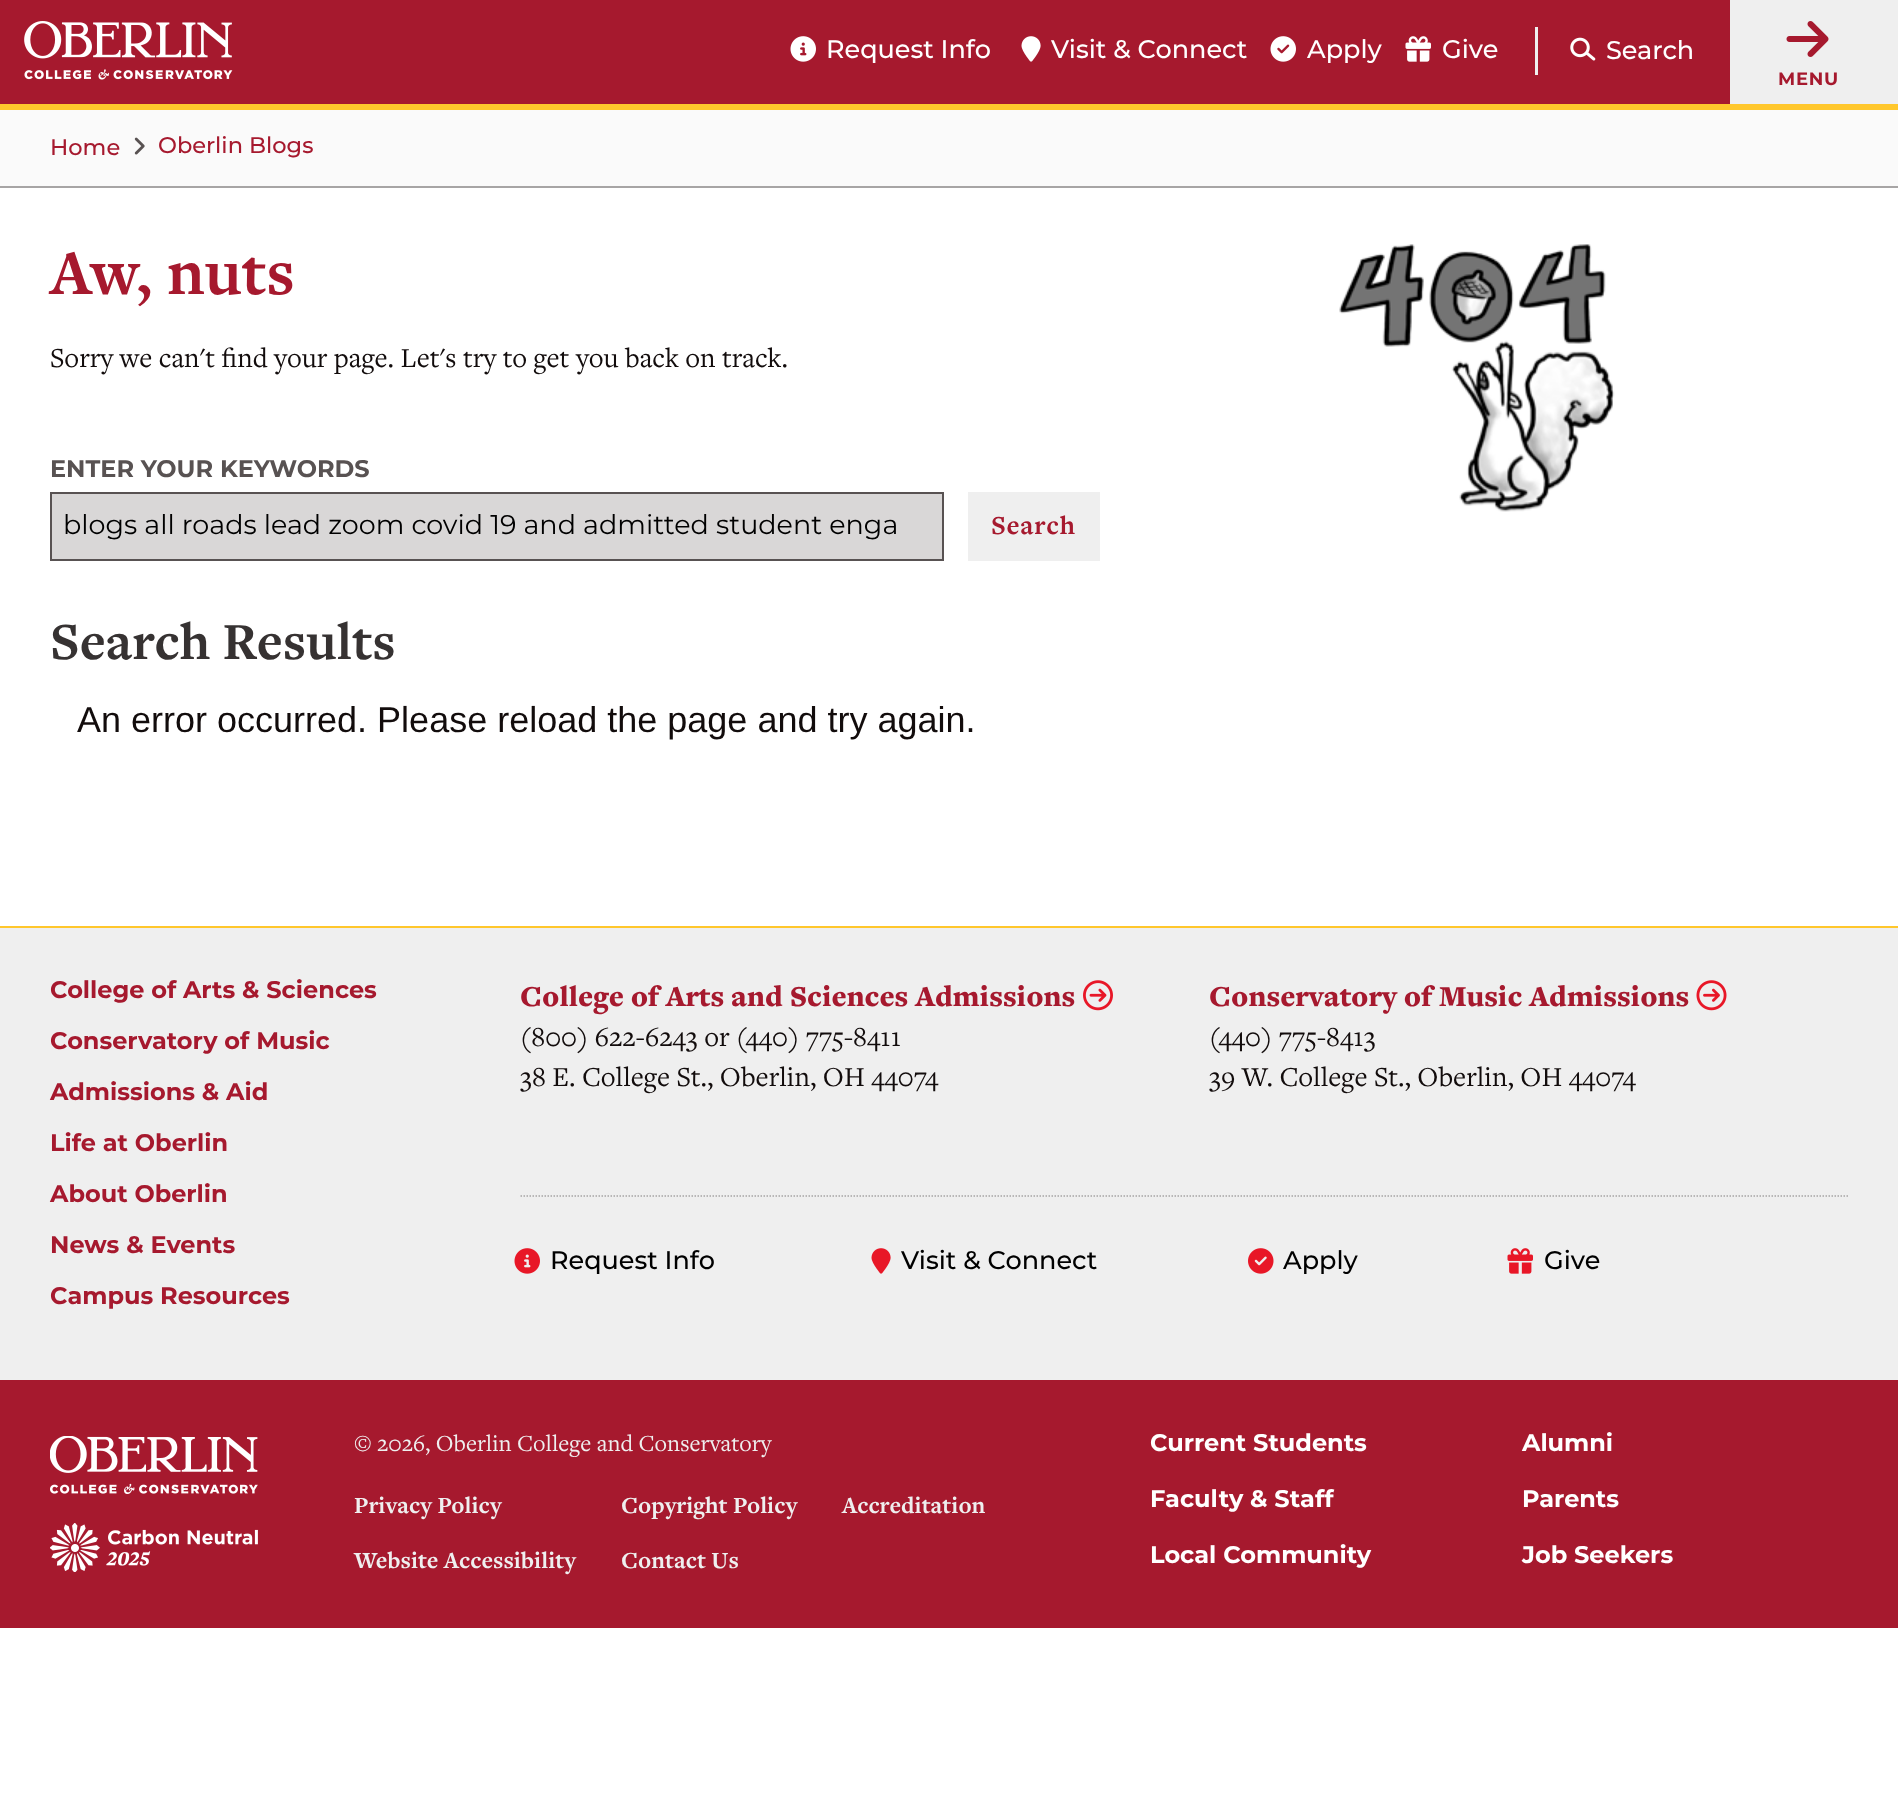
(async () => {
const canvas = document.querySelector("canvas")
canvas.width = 1898
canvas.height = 1810
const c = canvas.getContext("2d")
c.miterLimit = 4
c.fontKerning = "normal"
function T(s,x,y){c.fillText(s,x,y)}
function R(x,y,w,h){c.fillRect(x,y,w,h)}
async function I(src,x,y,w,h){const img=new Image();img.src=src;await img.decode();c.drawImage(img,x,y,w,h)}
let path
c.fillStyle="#fff"
R(0,0,1898,1810)
c.fillStyle="#a6192e"
R(0,0,1730,104)
c.fillStyle="#ffc72c"
R(0,104,1898,6)
await I("1.png",24,21,209,59)
await I("2.png",790,36,26,26)
c.font="500 25.5px Montserrat"
c.fillStyle="#fff"
T("Request Info",826,58)
await I("3.png",1021,36,20,26)
T("Visit & Connect",1051,58)
await I("4.png",1270,36,26,26)
T("Apply",1307,58)
await I("5.png",1405,36,26,26)
T("Give",1442,58)
c.fillStyle="#efefef"
R(1535,27,3,48)
await I("6.png",1570,37,26,24)
c.fillStyle="#fff"
T("Search",1606,59)
c.fillStyle="#efefef"
R(1730,0,168,104)
await I("7.png",1786,21,43,36)
c.letterSpacing="0.75px"
c.font="bold 18px Montserrat"
c.fillStyle="#a6192e"
T("MENU",1778,85)
c.fillStyle="#fafafa"
R(0,110,1898,76)
c.fillStyle="#a7a5a5"
R(0,186,1898,2)
c.letterSpacing="0px"
c.font="500 22.5px Montserrat"
c.fillStyle="#a6192e"
T("Home",50,155)
await I("8.png",134,137,11,18)
T("Oberlin Blogs",158,153)
c.font="bold 66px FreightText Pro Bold"
T("Aw, nuts",50,294)
c.font="28.5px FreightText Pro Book"
c.fillStyle="#120c0c"
T("Sorry we can't find your page. Let's try to get you back on track.",50,367)
c.font="bold 24px Montserrat"
c.fillStyle="#585252"
T("ENTER YOUR KEYWORDS",50,477)
c.fillStyle="#d9d7d7"
c.beginPath()
c.rect(51,493,892,67)
c.fill()
c.strokeStyle="#585252"
c.lineWidth=2
c.stroke()
c.font="27px Montserrat"
c.fillStyle="#000"
T("blogs all roads lead zoom covid 19 and admitted student enga",63,534)
c.fillStyle="#efefef"
R(968,492,132,69)
c.letterSpacing="0.75px"
c.font="bold 27px FreightText Pro Bold"
c.fillStyle="#a6192e"
T("Search",991,534)
c.letterSpacing="0px"
c.font="bold 54px FreightText Pro Bold"
c.fillStyle="#363232"
T("Search Results",50,659)
c.font="36px Liberation Sans"
c.fillStyle="#120c0c"
T("An error occurred. Please reload the page and try again.",77,732)
await I("9.png",1339,244,276,268)
c.fillStyle="#efefef"
R(0,928,1898,452)
c.fillStyle="#ffc72c"
R(0,926,1898,2)
c.font="bold 24px Montserrat"
c.fillStyle="#a6192e"
T("College of Arts & Sciences",50,998)
T("Conservatory of Music",50,1049)
T("Admissions & Aid",50,1100)
T("Life at Oberlin",50,1151)
T("About Oberlin",50,1202)
T("News & Events",50,1253)
T("Campus Resources",50,1304)
c.font="900 30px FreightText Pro"
T("College of Arts and Sciences Admissions",520,1006)
await I("10.png",1083,980,30,31)
c.font="28.5px FreightText Pro Book"
c.fillStyle="#120c0c"
T("(800) 622-6243 or (440) 775-8411",520,1046)
T("38 E. College St., Oberlin, OH 44074",520,1086)
c.font="900 30px FreightText Pro"
c.fillStyle="#a6192e"
T("Conservatory of Music Admissions",1209,1006)
await I("11.png",1696,980,31,31)
c.font="28.5px FreightText Pro Book"
c.fillStyle="#120c0c"
T("(440) 775-8413",1209,1046)
T("39 W. College St., Oberlin, OH 44074",1209,1086)
path = new Path2D("M520.5 1196h1329")
c.strokeStyle="#a7a5a5"
c.lineWidth=1.5
c.setLineDash([1.5,1.5])
c.stroke(path)
await I("12.png",514,1248,26,26)
c.font="500 25.5px Montserrat"
c.fillStyle="#000"
T("Request Info",550,1269)
await I("13.png",871,1248,20,26)
T("Visit & Connect",901,1269)
await I("14.png",1248,1248,26,26)
T("Apply",1283,1269)
await I("15.png",1507,1248,26,26)
T("Give",1544,1269)
c.fillStyle="#a6192e"
R(0,1380,1898,248)
await I("16.png",50,1436,208,58)
await I("17.png",50,1523,208,49)
c.font="24px FreightText Pro Book"
c.fillStyle="#efefef"
T("© 2026, Oberlin College and Conservatory",354,1451)
c.font="bold 24px Montserrat"
c.fillStyle="#fff"
T("Current Students",1150,1451)
T("Alumni",1522,1451)
T("Faculty & Staff",1150,1507)
T("Parents",1522,1507)
T("Local Community",1150,1563)
T("Job Seekers",1522,1563)
c.font="bold 24px FreightText Pro Bold"
c.fillStyle="#efefef"
T("Privacy Policy",354,1513)
T("Copyright Policy",621,1513)
T("Accreditation",842,1513)
T("Website Accessibility",354,1568)
T("Contact Us",621,1568)
})()
